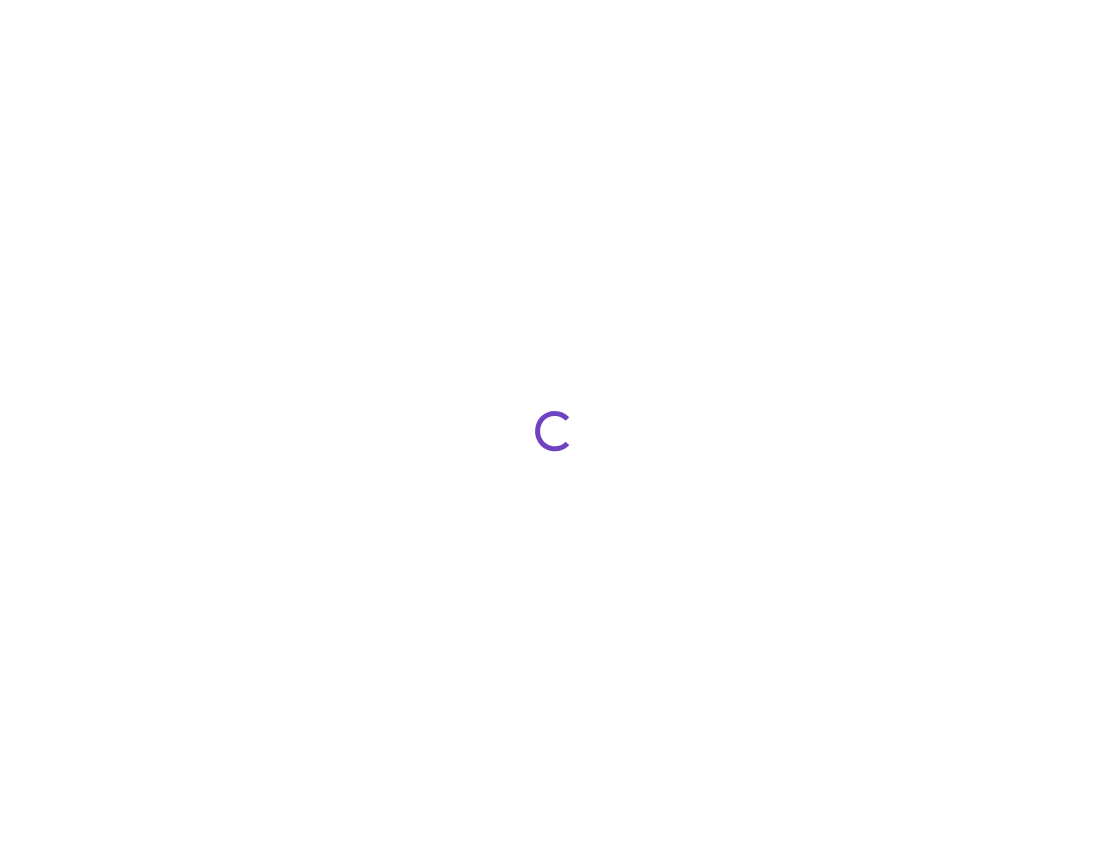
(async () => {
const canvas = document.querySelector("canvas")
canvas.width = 1109
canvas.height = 867
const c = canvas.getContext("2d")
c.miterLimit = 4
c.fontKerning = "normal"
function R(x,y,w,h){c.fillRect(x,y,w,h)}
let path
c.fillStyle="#fff"
R(0,0,1109,867)
path = new Path2D("M567.5 443.5c-4 4-10 6-16 5c-20.5-4.5-17.5-35 3.5-35c4.5 0 9 2 12.5 5.5")
c.strokeStyle="#6f42c1"
c.lineWidth=5
c.stroke(path)
})()
